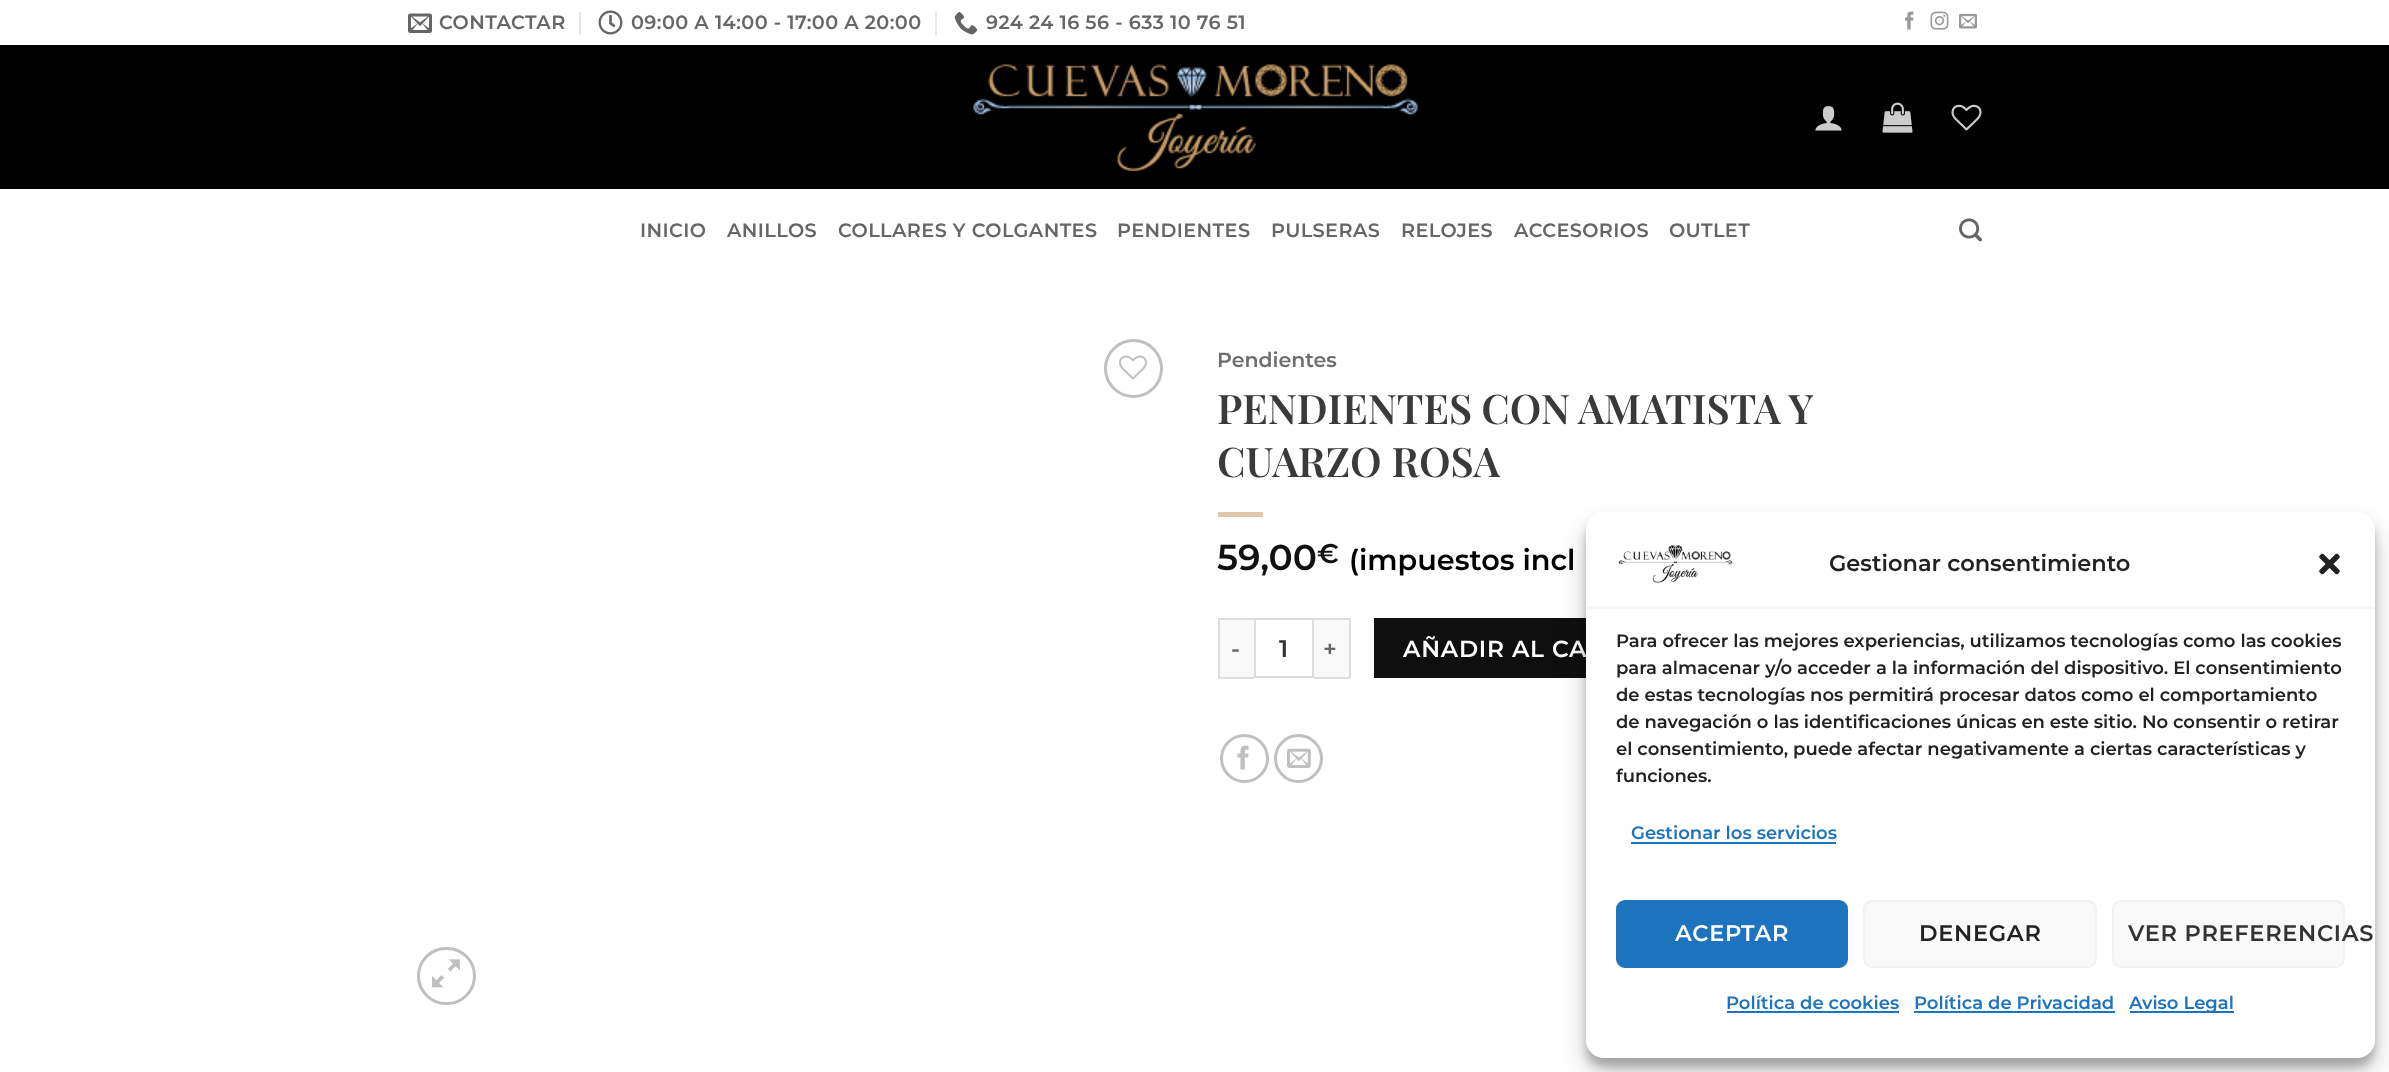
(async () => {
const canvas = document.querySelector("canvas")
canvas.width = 2389
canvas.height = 1072
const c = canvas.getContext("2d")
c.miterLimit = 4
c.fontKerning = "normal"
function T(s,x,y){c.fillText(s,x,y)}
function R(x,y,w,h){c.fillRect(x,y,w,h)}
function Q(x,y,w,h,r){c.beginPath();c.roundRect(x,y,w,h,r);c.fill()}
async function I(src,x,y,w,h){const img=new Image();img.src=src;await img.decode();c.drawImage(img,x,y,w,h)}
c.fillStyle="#fff"
R(0,0,2389,1072)
await I("1.png",408,13,24,20)
c.letterSpacing="0.4px"
c.font="100 19.25px Montserrat"
c.fillStyle="#666"
T("CONTACTAR",439,29)
c.fillStyle="#e6e6e6"
R(579,12,2,23)
await I("2.png",598,10,25,25)
c.fillStyle="#666"
T("09:00 A 14:00 - 17:00 A 20:00",631,29)
c.fillStyle="#e6e6e6"
R(935,12,2,23)
await I("3.png",954,12,24,23)
c.fillStyle="#666"
T("924 24 16 56 - 633 10 76 51",986,29)
await I("4.png",1905,11,9,19)
await I("5.png",1930,11,19,19)
await I("6.png",1959,13,18,16)
c.fillStyle="#000"
R(0,45,2389,144)
await I("7.png",973,64,445,107)
await I("8.png",1815,106,27,25)
await I("9.png",1882,102,31,31)
await I("10.png",1951,104,31,27)
c.fillStyle="#666"
T("INICIO",640,237)
T("ANILLOS",727,237)
T("COLLARES Y COLGANTES",838,237)
T("PENDIENTES",1117,237)
T("PULSERAS",1271,237)
T("RELOJES",1401,237)
T("ACCESORIOS",1514,237)
T("OUTLET",1669,237)
await I("11.png",1959,218,23,24)
c.beginPath()
c.arc(1133.5,368.5,28,0,7)
c.strokeStyle="#c0c0c0"
c.lineWidth=3
c.stroke()
await I("12.png",1119,355,28,25)
c.beginPath()
c.roundRect(418.5,948.5,56,55,27.5)
c.stroke()
await I("13.png",432,959,28,29)
c.letterSpacing="0px"
c.font="100 20.5px Montserrat"
c.fillStyle="#6e6e6e"
T("Pendientes",1217,367)
c.wordSpacing="-0.5px"
c.font="600 40.75px Playfair Display"
c.fillStyle="#3a3a3a"
T("PENDIENTES CON AMATISTA Y",1217,424)
c.wordSpacing="0px"
T("CUARZO ROSA",1217,477)
c.fillStyle="#e1c8aa"
R(1218,512,45,5)
c.font="100 36px Montserrat"
c.fillStyle="#111"
T("59,00",1217,570)
c.font="100 27px Montserrat"
T("€",1317,563)
c.font="100 28.75px Montserrat"
c.fillStyle="#000"
T("(impuestos incl",1349,570)
c.fillStyle="#f9f9f9"
R(1220,620,34,57)
c.fillStyle="#ddd"
R(1218,618,36,2)
R(1218,677,36,2)
R(1218,618,2,60)
c.letterSpacing="0.75px"
c.font="100 23.25px Montserrat"
c.fillStyle="#666"
T("-",1231,657)
c.strokeStyle="#ddd"
c.lineWidth=2
c.strokeRect(1255,619,58,58)
c.letterSpacing="0px"
c.font="100 24px Montserrat"
c.fillStyle="#333"
T("1",1279,657)
c.fillStyle="#f9f9f9"
R(1314,620,35,57)
c.fillStyle="#ddd"
R(1314,618,36,2)
R(1349,618,2,60)
R(1314,677,36,2)
c.letterSpacing="0.75px"
c.font="100 23.25px Montserrat"
c.fillStyle="#666"
T("+",1323,657)
c.fillStyle="#0f0f0f"
R(1374,618,212,60)
c.fillStyle="#fff"
T("AÑADIR AL CA",1403,657)
c.beginPath()
c.arc(1244.5,758.5,23,0,7)
c.strokeStyle="#c0c0c0"
c.lineWidth=3
c.stroke()
await I("14.png",1237,745,12,25)
c.beginPath()
c.arc(1298.5,758.5,23,0,7)
c.stroke()
await I("15.png",1287,748,24,20)
c.fillStyle="#0000003b"
c.filter="blur(4.5px)"
c.beginPath()
c.roundRect(1586,521,789,546,18)
c.fill()
c.filter="none"
c.fillStyle="#00000030"
c.filter="blur(15px)"
c.beginPath()
c.roundRect(1586,527,789,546,18)
c.fill()
c.filter="none"
c.fillStyle="#fff"
Q(1586,512,789,546,18)
await I("16.png",1618,545,115,39)
c.letterSpacing="0px"
c.font="100 22.5px Montserrat"
c.fillStyle="#222"
T("Gestionar consentimiento",1829,571)
await I("17.png",2319,553,21,22)
c.save()
c.beginPath()
c.rect(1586,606,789,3)
c.clip()
c.fillStyle="#0000000d"
c.filter="blur(2px)"
c.beginPath()
c.rect(1586,606,789,5)
c.fill()
c.filter="none"
c.restore()
c.font="100 18px Montserrat"
T("Para ofrecer las mejores experiencias, utilizamos tecnologías como las cookies",1616,647)
T("para almacenar y/o acceder a la información del dispositivo. El consentimiento",1616,674)
T("de estas tecnologías nos permitirá procesar datos como el comportamiento",1616,701)
T("de navegación o las identificaciones únicas en este sitio. No consentir o retirar",1616,728)
T("el consentimiento, puede afectar negativamente a ciertas características y",1616,755)
c.save()
c.beginPath()
c.rect(1616,629,729,169)
c.clip()
T("funciones.",1616,782)
c.restore()
c.fillStyle="#1e73be"
T("Gestionar los servicios",1631,839)
R(1631,842,205,2)
c.beginPath()
c.roundRect(1617,901,230,66,8)
c.fill()
c.strokeStyle="#1e73be"
c.lineWidth=2
c.stroke()
c.letterSpacing="0.7px"
c.font="100 22.5px Montserrat"
c.fillStyle="#fff"
T("ACEPTAR",1675,941)
c.fillStyle="#f9f9f9"
c.beginPath()
c.roundRect(1864,901,232,66,8)
c.fill()
c.strokeStyle="#f2f2f2"
c.stroke()
c.fillStyle="#222"
T("DENEGAR",1919,941)
c.fillStyle="#f9f9f9"
c.beginPath()
c.roundRect(2113,901,231,66,8)
c.fill()
c.stroke()
c.fillStyle="#333"
T("VER PREFERENCIAS",2128,941)
c.letterSpacing="0px"
c.font="100 18px Montserrat"
c.fillStyle="#1e73be"
T("Política de cookies",1726,1009)
R(1727,1011,172,2)
T("Política de Privacidad",1914,1009)
R(1914,1011,201,2)
R(2130,1011,104,2)
T("Aviso Legal",2129,1009)
})()
